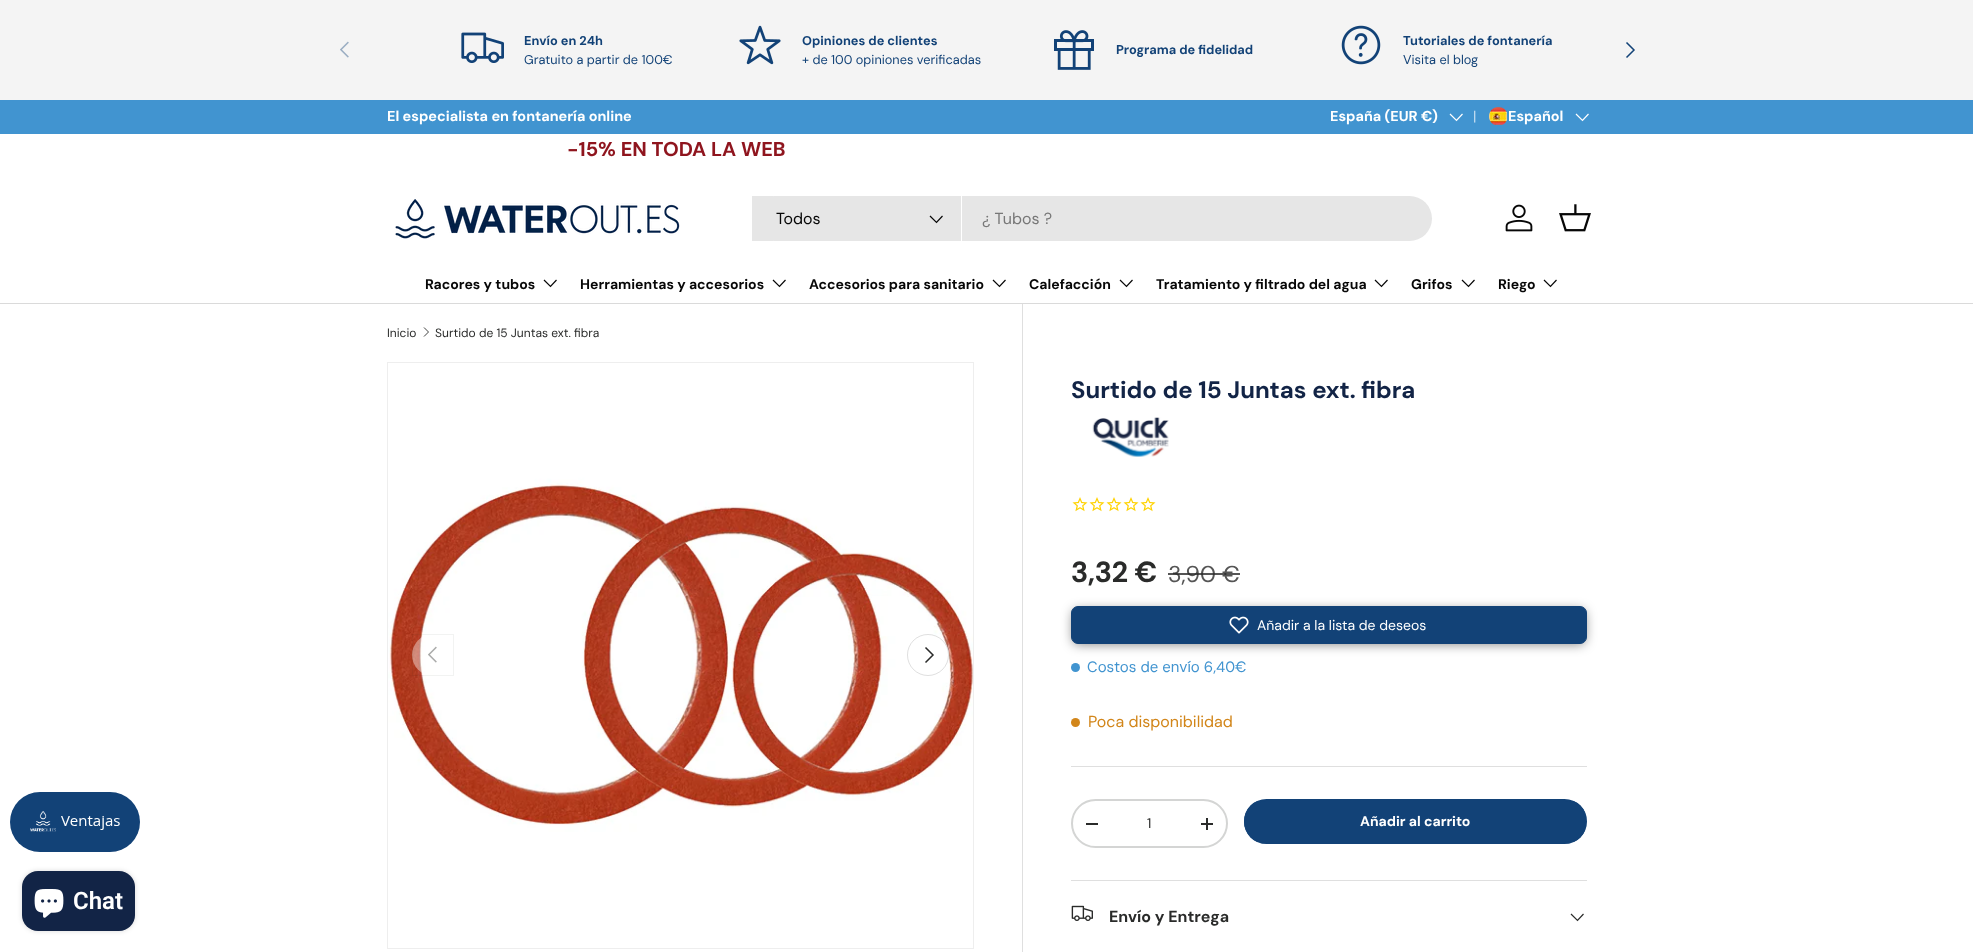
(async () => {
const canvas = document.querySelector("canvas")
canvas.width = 1973
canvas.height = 952
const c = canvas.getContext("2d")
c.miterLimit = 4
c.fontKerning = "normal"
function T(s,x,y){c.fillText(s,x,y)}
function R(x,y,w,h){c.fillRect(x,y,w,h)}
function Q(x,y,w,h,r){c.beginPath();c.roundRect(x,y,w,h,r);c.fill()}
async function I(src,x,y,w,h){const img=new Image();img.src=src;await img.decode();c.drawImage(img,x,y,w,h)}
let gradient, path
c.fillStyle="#fff"
R(0,0,1973,952)
c.fillStyle="#f4f4f4"
R(0,0,1973,100)
await I("1.png",461,32,43,31)
c.font="bold 12.75px 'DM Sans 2'"
c.fillStyle="#124277"
T("Envío en 24h",524,45)
c.font="12.75px 'DM Sans 2'"
T("Gratuito a partir de 100€",524,64)
await I("2.png",739,25,42,40)
c.font="bold 12.75px 'DM Sans 2'"
T("Opiniones de clientes",802,45)
c.font="12.75px 'DM Sans 2'"
T("+ de 100 opiniones verificadas",802,64)
await I("3.png",1054,30,40,40)
c.font="bold 12.75px 'DM Sans 2'"
T("Programa de fidelidad",1116,54)
await I("4.png",1341,25,40,40)
T("Tutoriales de fontanería",1403,45)
c.font="12.75px 'DM Sans 2'"
T("Visita el blog",1403,64)
await I("5.png",340,41,9,17)
path = new Path2D("M1626.5 42.5l7.5 7.5l-7.5 7.5")
c.strokeStyle="#124277"
c.lineWidth=1.5
c.stroke(path)
c.fillStyle="#4194d0"
R(0,100,1973,34)
c.font="bold 14.4px DM Sans"
c.fillStyle="#fff"
T("El especialista en fontanería online",387,121)
T("España (EUR €)",1330,121)
path = new Path2D("M1462.5 114l-6 6.5l-6.5-6.5")
c.strokeStyle="#fff"
c.lineWidth=1.2
c.stroke(path)
c.font="14.4px 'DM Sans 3'"
c.fillStyle="#c6dff1"
T("|",1473,121)
await I("6.png",1489,107,18,18)
c.font="bold 14.4px DM Sans"
c.fillStyle="#fff"
T("Español",1508,121)
path = new Path2D("M1588.5 114l-6 6.5l-6.5-6.5")
c.stroke(path)
c.font="bold 20px 'DM Sans 3'"
c.fillStyle="#8f151e"
T("-15% EN TODA LA WEB",567,156)
c.fillStyle="#dadada"
R(0,303,1973,1)
await I("7.png",395,199,285,40)
c.fillStyle="#e6e6e6"
Q(752,196,680,45,22.5)
R(752,196,21,45)
c.fillStyle="#fff"
R(961,196,1,45)
c.font="16px 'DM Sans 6'"
c.fillStyle="#070707"
T("Todos",776,224)
path = new Path2D("M942.5 216l-6 6.5l-6.5-6.5")
c.strokeStyle="#070707"
c.stroke(path)
c.fillStyle="#777"
T("¿ Tubos ?",982,224)
await I("8.png",1505,204,28,28)
await I("9.png",1559,204,32,28)
c.font="bold 14px 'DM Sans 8'"
c.fillStyle="#070707"
T("Racores y tubos",425,289)
path = new Path2D("M556.5 280l-6 6.5l-6.5-6.5")
c.stroke(path)
T("Herramientas y accesorios",580,289)
path = new Path2D("M785.5 280l-6 6.5l-6.5-6.5")
c.stroke(path)
T("Accesorios para sanitario",809,289)
path = new Path2D("M1005.5 280l-6 6.5l-6.5-6.5")
c.stroke(path)
T("Calefacción",1029,289)
path = new Path2D("M1132.5 280l-6 6.5l-6.5-6.5")
c.stroke(path)
T("Tratamiento y filtrado del agua",1156,289)
path = new Path2D("M1387.5 280l-6 6.5l-6.5-6.5")
c.stroke(path)
T("Grifos",1411,289)
path = new Path2D("M1474.5 280l-6 6.5l-6.5-6.5")
c.stroke(path)
T("Riego",1498,289)
path = new Path2D("M1556.5 280l-6 6.5l-6.5-6.5")
c.stroke(path)
c.fillStyle="#124277"
Q(10,792,130,60,30)
await I("10.png",30,811,90,21)
c.font="12px DM Sans"
c.fillStyle="#2a2b2a"
T("Inicio",387,337)
path = new Path2D("M424 327.5l4.5 4.5l-4.5 4.5")
c.strokeStyle="#2a2b2a"
c.lineWidth=0.9
c.stroke(path)
T("Surtido de 15 Juntas ext. fibra",435,337)
c.strokeStyle="#eee"
c.lineWidth=1
c.strokeRect(387.5,362.5,586,586)
await I("11.png",388,363,585,585)
c.fillStyle="#ffffff66"
c.beginPath()
c.arc(433,655,21,0,7)
c.fill()
c.strokeStyle="#2a2b2a0f"
c.strokeRect(412.5,634.5,41,41)
await I("12.png",428,646,9,17)
c.fillStyle="#fff"
c.beginPath()
c.arc(928,655,21,0,7)
c.fill()
c.beginPath()
c.arc(928,655,20.5,0,7)
c.strokeStyle="#2a2b2a26"
c.stroke()
path = new Path2D("M925.5 647.5l7.5 7.5l-7.5 7.5")
c.strokeStyle="#2a2b2a"
c.lineWidth=1.5
c.stroke(path)
c.fillStyle="#dfdfdf"
R(1022,304,1,648)
c.font="bold 24px 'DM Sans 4'"
c.fillStyle="#122446"
T("Surtido de 15 Juntas ext. fibra",1071,398)
await I("13.png",1092,417,77,40)
await I("14.png",1072,497,16,15)
await I("14.png",1089,497,16,15)
await I("14.png",1106,497,16,15)
await I("14.png",1123,497,16,15)
await I("14.png",1140,497,16,15)
c.font="bold 29px 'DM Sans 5'"
c.fillStyle="#2a2b2a"
T("3,32 €",1071,582)
c.font="23px 'DM Sans 4'"
c.fillStyle="#555"
T("3,90 €",1168,582)
c.fillStyle="#2a2b2acc"
R(1168,573,72,2)
c.fillStyle="#00000080"
c.filter="blur(6px)"
c.beginPath()
c.roundRect(1073,610,512,34,5)
c.fill()
c.filter="none"
c.fillStyle="#124277"
c.beginPath()
c.roundRect(1071.5,606.5,515,37,6.5)
c.fill()
c.strokeStyle="#124277"
c.lineWidth=1
c.stroke()
await I("15.png",1229,616,20,18)
c.font="14px 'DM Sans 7'"
c.fillStyle="#fff"
T("Añadir a la lista de deseos",1257,630)
c.fillStyle="#4194d0"
c.beginPath()
c.arc(1075.5,667.5,4.5,0,7)
c.fill()
c.font="15px 'DM Sans 5'"
T("Costos de envío 6,40€",1087,672)
c.fillStyle="#d2861a"
c.beginPath()
c.arc(1075.5,722.5,4.5,0,7)
c.fill()
c.font="16px 'DM Sans 6'"
T("Poca disponibilidad",1088,727)
c.fillStyle="#dfdfdf"
R(1071,766,516,1)
c.beginPath()
c.roundRect(1072,800,155,47,23.5)
c.strokeStyle="#d4d5d4"
c.lineWidth=2
c.stroke()
c.fillStyle="#2a2b2a"
R(1086,823,12,2)
c.font="14px 'DM Sans 7'"
T("1",1147,828)
R(1201,823,12,2)
R(1206,818,2,12)
c.save()
c.beginPath()
c.roundRect(1244,799,343,45,22.5)
c.clip()
gradient = c.createLinearGradient(593,701,1560,942)
gradient.addColorStop(.6,"#3a6596")
gradient.addColorStop(.6,"#124277")
gradient.addColorStop(1,"#124277")
c.fillStyle = gradient
R(1244,801,341,41)
c.restore()
c.beginPath()
c.roundRect(1245,800,341,43,21.5)
c.strokeStyle="#124277"
c.stroke()
c.font="bold 14px 'DM Sans 7'"
c.fillStyle="#fff"
T("Añadir al carrito",1360,826)
c.fillStyle="#dfdfdf"
R(1071,880,516,1)
await I("16.png",1071,905,22,16)
c.font="bold 16px 'DM Sans 6'"
c.fillStyle="#2a2b2a"
T("Envío y Entrega",1109,922)
path = new Path2D("M1583.5 914l-6 6.5l-6.5-6.5")
c.strokeStyle="#2a2b2a"
c.lineWidth=1.2
c.stroke(path)
c.fillStyle="#00000026"
c.filter="blur(2.5px)"
c.beginPath()
c.roundRect(22,871,113,60,16)
c.fill()
c.filter="none"
c.fillStyle="#122446"
Q(22,871,113,60,16)
await I("17.png",34,889,30,29)
c.font="600 24px Roboto"
c.fillStyle="#fff"
T("Chat",73,909)
})()
